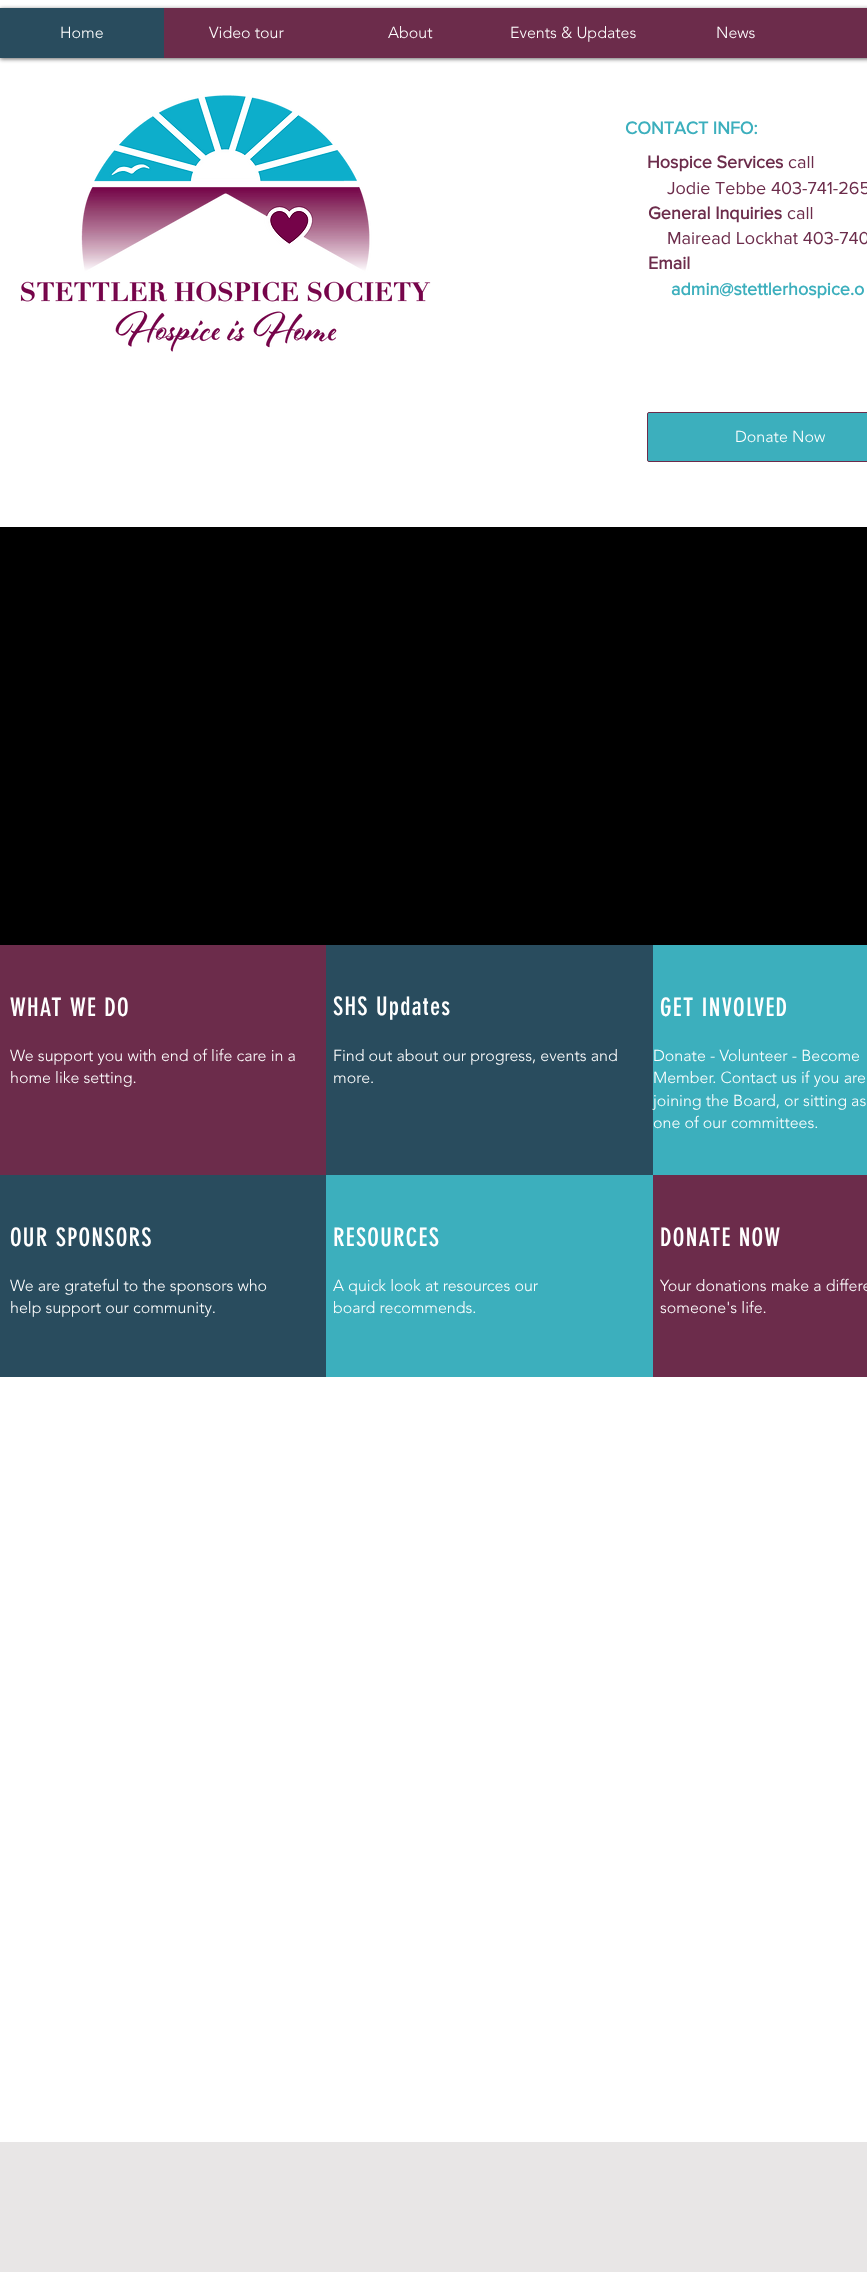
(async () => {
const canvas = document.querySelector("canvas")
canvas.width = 867
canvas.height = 2272
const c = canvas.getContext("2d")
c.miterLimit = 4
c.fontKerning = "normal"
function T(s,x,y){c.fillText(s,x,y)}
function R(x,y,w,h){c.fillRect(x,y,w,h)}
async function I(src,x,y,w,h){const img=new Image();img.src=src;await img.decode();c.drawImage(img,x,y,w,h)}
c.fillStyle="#e8e6e6"
R(0,0,867,2272)
c.fillStyle="#fff"
R(0,0,867,527)
c.fillStyle="#00000099"
c.filter="blur(2px)"
c.beginPath()
c.rect(0,9,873,50)
c.fill()
c.filter="none"
c.fillStyle="#6c2c4b"
R(164,8,703,50)
c.fillStyle="#294c5e"
R(0,8,164,50)
c.font="300 16px 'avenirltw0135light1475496'"
c.fillStyle="#fff"
T("Home",60,38)
T("Video tour",209,38)
T("About",388,38)
T("Events & Updates",510,38)
T("News",716,38)
await I("1.png",20,95,411,257)
c.font="bold 18px 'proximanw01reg'"
c.fillStyle="#3cafbd"
T("CONTACT INFO:",625,134)
c.fillStyle="#6c2c4b"
T("Hospice Services",647,168)
c.font="18px 'proximanw01reg'"
T("call",788,168)
T("Jodie Tebbe 403-741-265",667,194)
c.font="bold 18px 'proximanw01reg'"
T("General Inquiries",648,219)
c.font="18px 'proximanw01reg'"
T("call",787,219)
T("Mairead Lockhat 403-740",667,244)
c.font="bold 18px 'proximanw01reg'"
T("Email",648,269)
c.fillStyle="#3cafbd"
T("admin@stettlerhospice.o",671,295)
c.beginPath()
c.roundRect(647.5,412.5,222,49,1.5)
c.fill()
c.strokeStyle="#6c2c4b"
c.stroke()
c.font="300 16px 'avenirltw0135light1475496'"
c.fillStyle="#fff"
T("Donate Now",735,442)
c.fillStyle="#000"
R(0,527,867,418)
c.fillStyle="#6c2c4b"
R(0,945,326,230)
c.letterSpacing="1.25px"
c.font="25px 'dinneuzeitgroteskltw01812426'"
c.fillStyle="#fff"
T("WHAT WE DO",10,1016)
c.letterSpacing="0px"
c.font="300 16px 'avenirltw0135light1475496'"
T("We support you with end of life care in a",10,1061)
T("home like setting.",10,1083)
c.fillStyle="#294c5e"
R(326,945,327,230)
c.letterSpacing="1.25px"
c.font="25px 'dinneuzeitgroteskltw01812426'"
c.fillStyle="#fff"
T("SHS Updates",333,1015)
c.letterSpacing="0px"
c.font="300 16px 'avenirltw0135light1475496'"
T("Find out about our progress, events and",333,1061)
T("more.",333,1083)
c.fillStyle="#3cafbd"
R(653,945,214,230)
c.letterSpacing="1.25px"
c.font="25px 'dinneuzeitgroteskltw01812426'"
c.fillStyle="#fff"
T("GET INVOLVED",660,1016)
c.letterSpacing="0px"
c.font="300 16px 'avenirltw0135light1475496'"
T("Donate - Volunteer - Become",653,1061)
T("Member. Contact us if you are",653,1083)
T("joining the Board, or sitting as",653,1106)
T("one of our committees.",653,1128)
c.fillStyle="#294c5e"
R(0,1175,326,202)
c.letterSpacing="1.25px"
c.font="25px 'dinneuzeitgroteskltw01812426'"
c.fillStyle="#fff"
T("OUR SPONSORS",10,1246)
c.letterSpacing="0px"
c.font="300 16px 'avenirltw0135light1475496'"
T("We are grateful to the sponsors who",10,1291)
T("help support our community.",10,1313)
c.fillStyle="#3cafbd"
R(326,1175,327,202)
c.letterSpacing="1.25px"
c.font="25px 'dinneuzeitgroteskltw01812426'"
c.fillStyle="#fff"
T("RESOURCES",333,1246)
c.letterSpacing="0px"
c.font="300 16px 'avenirltw0135light1475496'"
T("A quick look at resources our",333,1291)
T("board recommends.",333,1313)
c.fillStyle="#6c2c4b"
R(653,1175,214,202)
c.letterSpacing="1.25px"
c.font="25px 'dinneuzeitgroteskltw01812426'"
c.fillStyle="#fff"
T("DONATE NOW",660,1246)
c.letterSpacing="0px"
c.font="300 16px 'avenirltw0135light1475496'"
T("Your donations make a differe",660,1291)
T("someone's life.",660,1313)
R(0,1377,867,765)
})()
